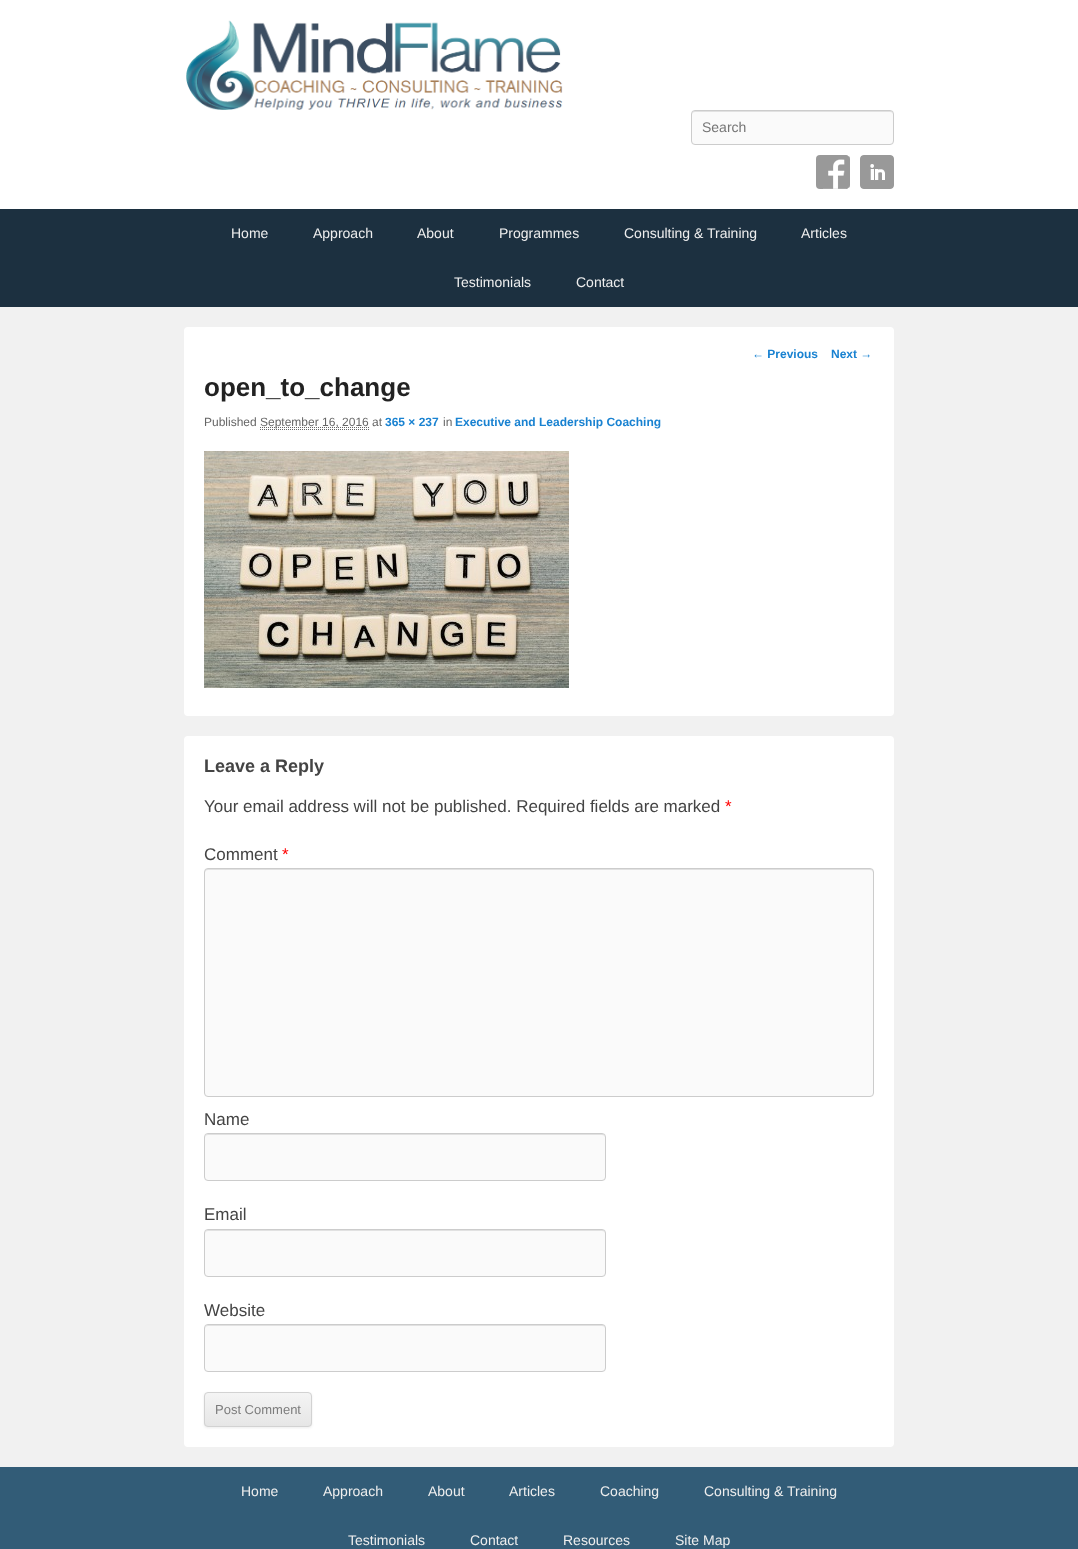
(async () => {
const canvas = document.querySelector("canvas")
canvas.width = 1078
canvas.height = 1549
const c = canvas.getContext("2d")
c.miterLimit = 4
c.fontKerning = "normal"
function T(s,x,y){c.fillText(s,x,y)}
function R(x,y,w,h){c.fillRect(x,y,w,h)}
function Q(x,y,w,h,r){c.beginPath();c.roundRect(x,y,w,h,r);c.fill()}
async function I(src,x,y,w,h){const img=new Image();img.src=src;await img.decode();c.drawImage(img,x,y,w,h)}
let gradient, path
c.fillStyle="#f1f1f1"
R(0,0,1078,1549)
c.fillStyle="#fff"
R(0,0,1078,209)
await I("1.png",186,20,377,90)
c.fillStyle="#fafafa"
Q(691,110,203,35,4)
c.fillStyle="#e1e1e1"
path = new Path2D("M695 112h195c2 0 3 1 3 3c0-2-1-4-3-4h-195c-2 0-3 2-3 4c0-2 1-3 3-3z")
c.fill(path)
c.beginPath()
c.roundRect(691.5,110.5,202,34,3.5)
c.strokeStyle="#ccc"
c.stroke()
c.font="14px Liberation Sans"
c.fillStyle="#757575"
T("Search",702,132)
await I("2.png",816,155,34,34)
await I("3.png",860,155,34,34)
c.fillStyle="#1c3040"
R(0,209,1078,98)
c.fillStyle="#eee"
T("Home",231,238)
T("Approach",313,238)
T("About",417,238)
T("Programmes",499,238)
T("Consulting & Training",624,238)
T("Articles",801,238)
T("Testimonials",454,287)
T("Contact",576,287)
c.fillStyle="#fff"
Q(184,327,710,389,4)
c.font="bold 12px Liberation Sans"
c.fillStyle="#1982d1"
T("← Previous",752,358)
T("Next →",831,358)
c.font="bold 26px Liberation Sans"
c.fillStyle="#222"
T("open_to_change",204,396)
c.font="12px Liberation Sans"
c.fillStyle="#666"
T("Published",204,426)
path = new Path2D("M260 427.5h109")
c.strokeStyle="#666"
c.setLineDash([1,1])
c.stroke(path)
T("September 16, 2016 at",260,426)
path = new Path2D("M260 429.5h109")
c.stroke(path)
c.font="bold 12px Liberation Sans"
c.fillStyle="#1982d1"
T("365 × 237",385,426)
c.font="12px Liberation Sans"
c.fillStyle="#666"
T("in",443,426)
c.font="bold 12px Liberation Sans"
c.fillStyle="#1982d1"
T("Executive and Leadership Coaching",455,426)
await I("4.png",204,451,365,237)
c.fillStyle="#fff"
Q(184,736,710,711,4)
c.font="bold 18px Liberation Sans"
c.fillStyle="#444"
T("Leave a Reply",204,772)
c.font="17px Liberation Sans"
T("Your email address will not be published. Required fields are marked",204,812)
c.fillStyle="#f00"
T("*",725,812)
c.fillStyle="#444"
T("Comment",204,860)
c.fillStyle="#f00"
T("*",282,860)
c.fillStyle="#fafafa"
Q(204,868,670,229,4)
c.fillStyle="#e1e1e1"
path = new Path2D("M208 870h662c2 0 3 1 3 3v-1c0-2-1-3-3-3h-662c-2 0-3 1-3 3v1c0-2 1-3 3-3z")
c.fill(path)
c.beginPath()
c.roundRect(204.5,868.5,669,228,3.5)
c.strokeStyle="#ccc"
c.setLineDash([])
c.stroke()
c.fillStyle="#444"
T("Name",204,1125)
c.fillStyle="#fafafa"
Q(204,1133,402,48,4)
c.fillStyle="#e1e1e1"
path = new Path2D("M208 1135h394c2 0 3 1 3 3c0-2-1-4-3-4h-394l-2 1l-1 3c0-2 1-3 3-3z")
c.fill(path)
c.beginPath()
c.roundRect(204.5,1133.5,401,47,3.5)
c.stroke()
c.fillStyle="#444"
T("Email",204,1220)
c.fillStyle="#fafafa"
Q(204,1229,402,48,4)
c.fillStyle="#e1e1e1"
path = new Path2D("M208 1231h394c2 0 3 1 3 3c0-2-1-4-3-4h-394l-2 1l-1 3c0-2 1-3 3-3z")
c.fill(path)
c.beginPath()
c.roundRect(204.5,1229.5,401,47,3.5)
c.stroke()
c.fillStyle="#444"
T("Website",204,1316)
c.fillStyle="#fafafa"
Q(204,1324,402,48,4)
c.fillStyle="#e1e1e1"
path = new Path2D("M208 1326h394c2 0 3 1 3 3c0-2-1-4-3-4h-394l-2 1l-1 3c0-2 1-3 3-3z")
c.fill(path)
c.beginPath()
c.roundRect(204.5,1324.5,401,47,3.5)
c.stroke()
c.fillStyle="#4040401a"
c.filter="blur(1px)"
c.beginPath()
c.roundRect(204,1393,108,35,4)
c.fill()
c.filter="none"
c.save()
c.beginPath()
c.roundRect(204,1392,108,35,4)
c.clip()
gradient = c.createLinearGradient(258,1393,258,1426)
gradient.addColorStop(0,"#f4f4f4")
gradient.addColorStop(1,"#e6e6e6")
c.fillStyle = gradient
R(204,1393,108,33)
c.restore()
c.beginPath()
c.roundRect(204.5,1392.5,107,34,3.5)
c.strokeStyle="#d2d2d2"
c.stroke()
c.font="13px Liberation Sans"
c.fillStyle="#7c7c7c"
T("Post Comment",215,1414)
c.fillStyle="#325c77"
R(0,1467,1078,82)
c.font="14px Liberation Sans"
c.fillStyle="#eee"
T("Home",241,1496)
T("Approach",323,1496)
T("About",428,1496)
T("Articles",509,1496)
T("Coaching",600,1496)
T("Consulting & Training",704,1496)
T("Testimonials",348,1545)
T("Contact",470,1545)
T("Resources",563,1545)
T("Site Map",675,1545)
})()
